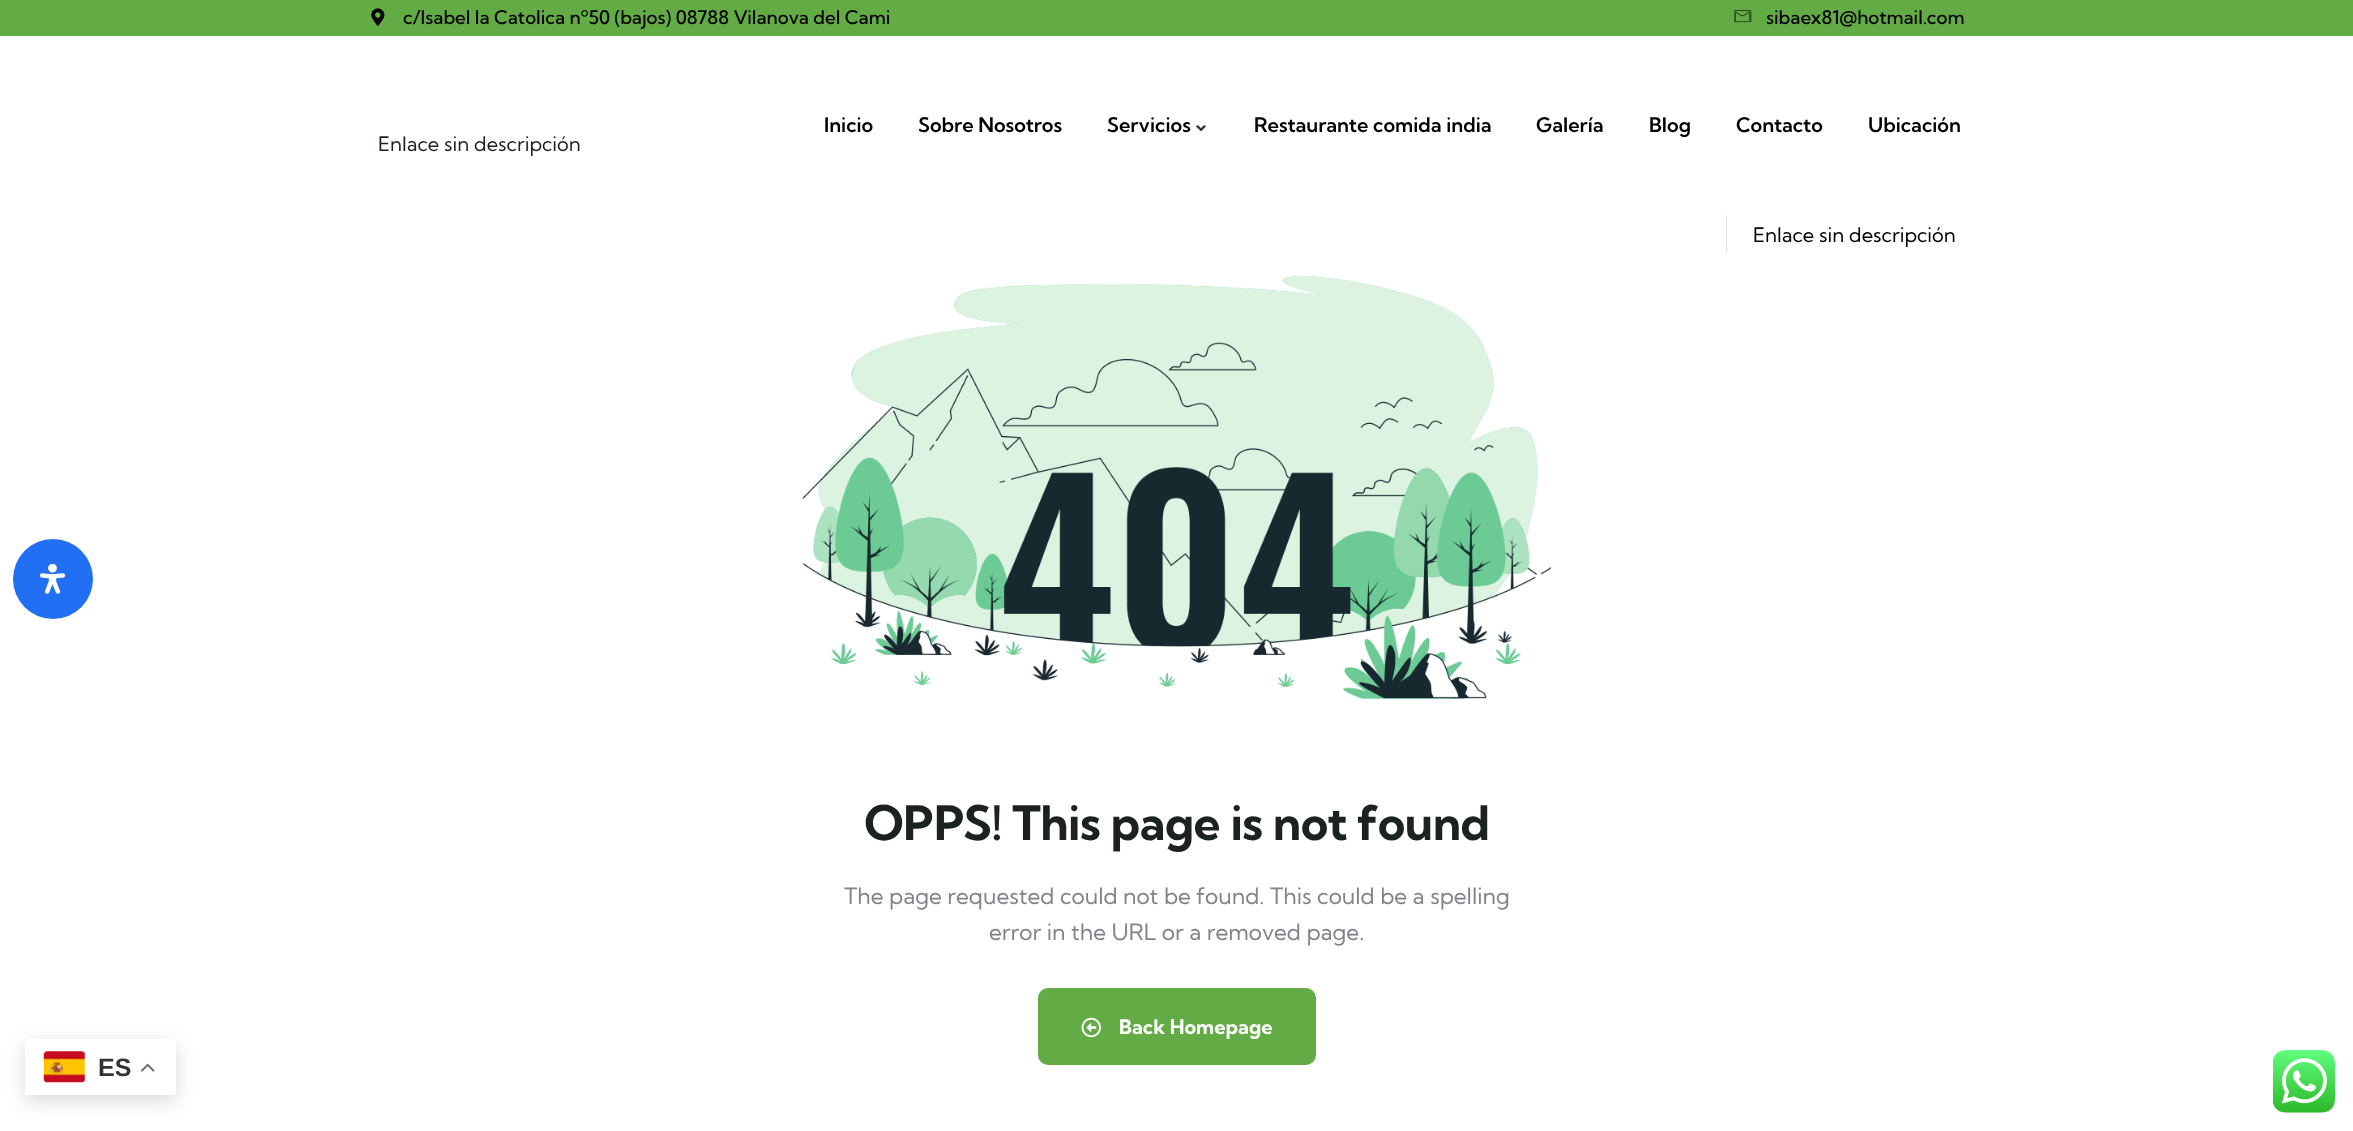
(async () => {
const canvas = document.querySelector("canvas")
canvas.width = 2353
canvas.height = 1131
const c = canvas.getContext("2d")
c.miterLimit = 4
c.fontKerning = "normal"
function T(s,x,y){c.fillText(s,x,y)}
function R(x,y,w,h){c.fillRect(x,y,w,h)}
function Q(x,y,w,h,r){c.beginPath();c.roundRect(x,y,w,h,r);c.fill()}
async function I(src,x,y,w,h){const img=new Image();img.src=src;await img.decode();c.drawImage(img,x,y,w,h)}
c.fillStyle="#fff"
R(0,0,2353,1131)
c.fillStyle="#216ff3"
c.beginPath()
c.arc(53,579,40,0,7)
c.fill()
await I("1.png",39,564,27,30)
c.fillStyle="#63ab45"
R(0,0,2353,36)
await I("2.png",371,8,14,18)
c.font="500 18.75px Kumbh Sans"
c.fillStyle="#000"
T("c/Isabel la Catolica nº50 (bajos) 08788 Vilanova del Cami",403,24)
await I("3.png",1734,10,18,13)
T("sibaex81@hotmail.com",1766,24)
c.font="20px Kumbh Sans"
c.fillStyle="#1c231f"
T("Enlace sin descripción",378,151)
c.font="600 20px Kumbh Sans"
c.fillStyle="#000"
T("Inicio",824,132)
T("Sobre Nosotros",918,132)
T("Servicios",1107,132)
await I("4.png",1196,125,10,7)
T("Restaurante comida india",1254,132)
T("Galería",1536,132)
T("Blog",1649,132)
T("Contacto",1736,132)
T("Ubicación",1868,132)
c.fillStyle="#e2dfeb"
R(1726,215,1,38)
c.font="20px Kumbh Sans"
c.fillStyle="#000"
T("Enlace sin descripción",1753,242)
await I("5.png",802,276,750,423)
c.letterSpacing="-0.5px"
c.font="bold 47.5px Kumbh Sans"
c.fillStyle="#1c231f"
T("OPPS! This page is not found",864,840)
c.letterSpacing="0px"
c.font="22.5px Kumbh Sans"
c.fillStyle="#82828a"
T("The page requested could not be found. This could be a spelling",844,904)
T("error in the URL or a removed page.",989,940)
c.fillStyle="#63ab45"
Q(1038,988,278,77,10)
await I("6.png",1081,1017,20,21)
c.font="bold 20px Kumbh Sans"
c.fillStyle="#fff"
T("Back Homepage",1119,1034)
c.fillStyle="#00000026"
c.filter="blur(9.5px)"
c.beginPath()
c.roundRect(25,1045,151,56,2.5)
c.fill()
c.filter="none"
c.fillStyle="#fff"
Q(25,1039,151,56,2.5)
await I("7.png",43,1051,42,32)
c.font="bold 25px Liberation Sans"
c.fillStyle="#333"
T("ES",98,1076)
await I("8.png",141,1063,14,9)
await I("9.png",2273,1050,62,63)
})()
